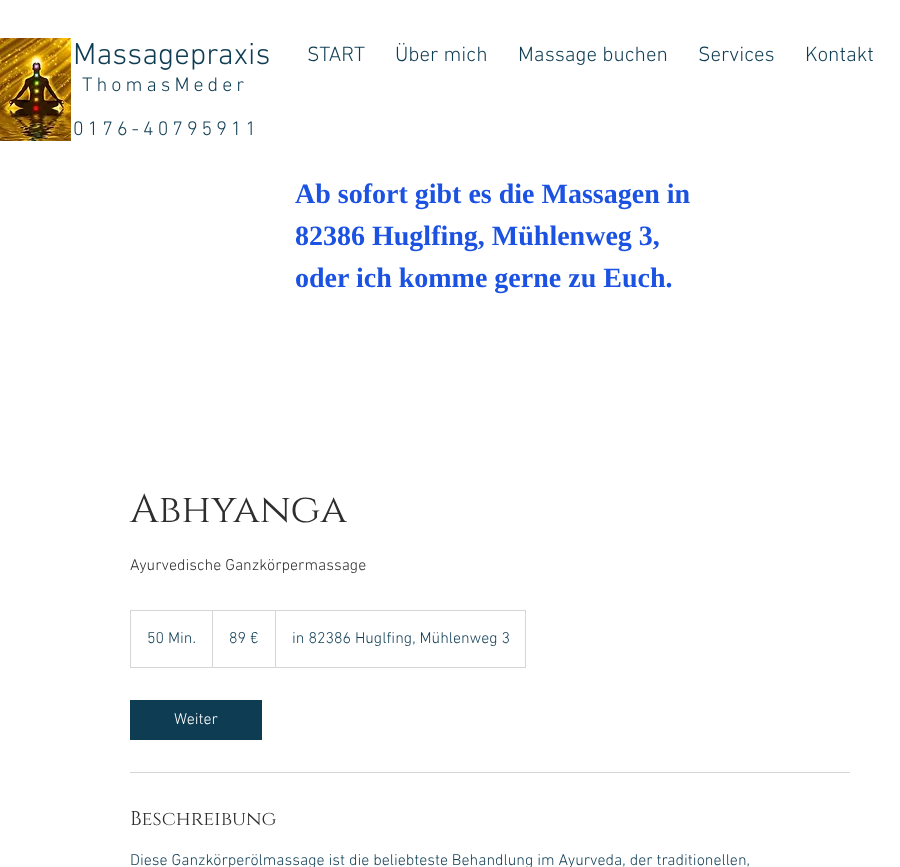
(async () => {
const canvas = document.querySelector("canvas")
canvas.width = 900
canvas.height = 867
const c = canvas.getContext("2d")
c.miterLimit = 4
c.fontKerning = "normal"
function T(s,x,y){c.fillText(s,x,y)}
function R(x,y,w,h){c.fillRect(x,y,w,h)}
async function I(src,x,y,w,h){const img=new Image();img.src=src;await img.decode();c.drawImage(img,x,y,w,h)}
let path
c.fillStyle="#fff"
R(0,0,900,867)
await I("1.png",0,38,71,103)
c.font="300 31px 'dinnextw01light'"
c.fillStyle="#0e3c53"
T("Massagepraxis",73,64)
c.letterSpacing="4px"
c.font="300 20px 'dinnextw01light'"
T("ThomasMeder",82,91)
T("0176-40795911",73,135)
c.letterSpacing="0px"
c.font="300 21px 'dinnextw01light'"
T("START",307,61)
T("Über mich",395,61)
T("Massage buchen",518,61)
T("Services",698,61)
T("Kontakt",805,61)
c.font="bold 28px Liberation Serif"
c.fillStyle="#1c52e2"
T("Ab sofort gibt es die Massagen in",295,203)
T("82386 Huglfing, Mühlenweg 3,",295,245)
T("oder ich komme gerne zu Euch.",295,287)
c.font="40px Cinzel"
c.fillStyle="#2f2e2e"
T("Abhyanga",130,522)
c.font="300 16px 'dinnextw01light'"
T("Ayurvedische Ganzkörpermassage",130,570)
c.strokeStyle="#d5d5d5"
c.strokeRect(130.5,610.5,395,57)
c.fillStyle="#0e3c53"
T("50 Min.",147,643)
c.fillStyle="#d5d5d5"
path = new Path2D("M212 667v-57l1 1v56z")
c.fill(path)
c.fillStyle="#0e3c53"
T("89 €",229,643)
c.fillStyle="#d5d5d5"
path = new Path2D("M275 667v-57l1 1v56z")
c.fill(path)
c.fillStyle="#0e3c53"
T("in 82386 Huglfing, Mühlenweg 3",292,643)
R(130,700,132,40)
c.fillStyle="#fff"
T("Weiter",174,724)
c.fillStyle="#d5d5d5"
R(130,772,720,1)
c.font="20px Cinzel"
c.fillStyle="#2f2e2e"
T("Beschreibung",130,825)
c.font="300 16px 'dinnextw01light'"
c.fillStyle="#0e3c53"
T("Diese Ganzkörperölmassage ist die beliebteste Behandlung im Ayurveda, der traditionellen,",130,865)
})()
